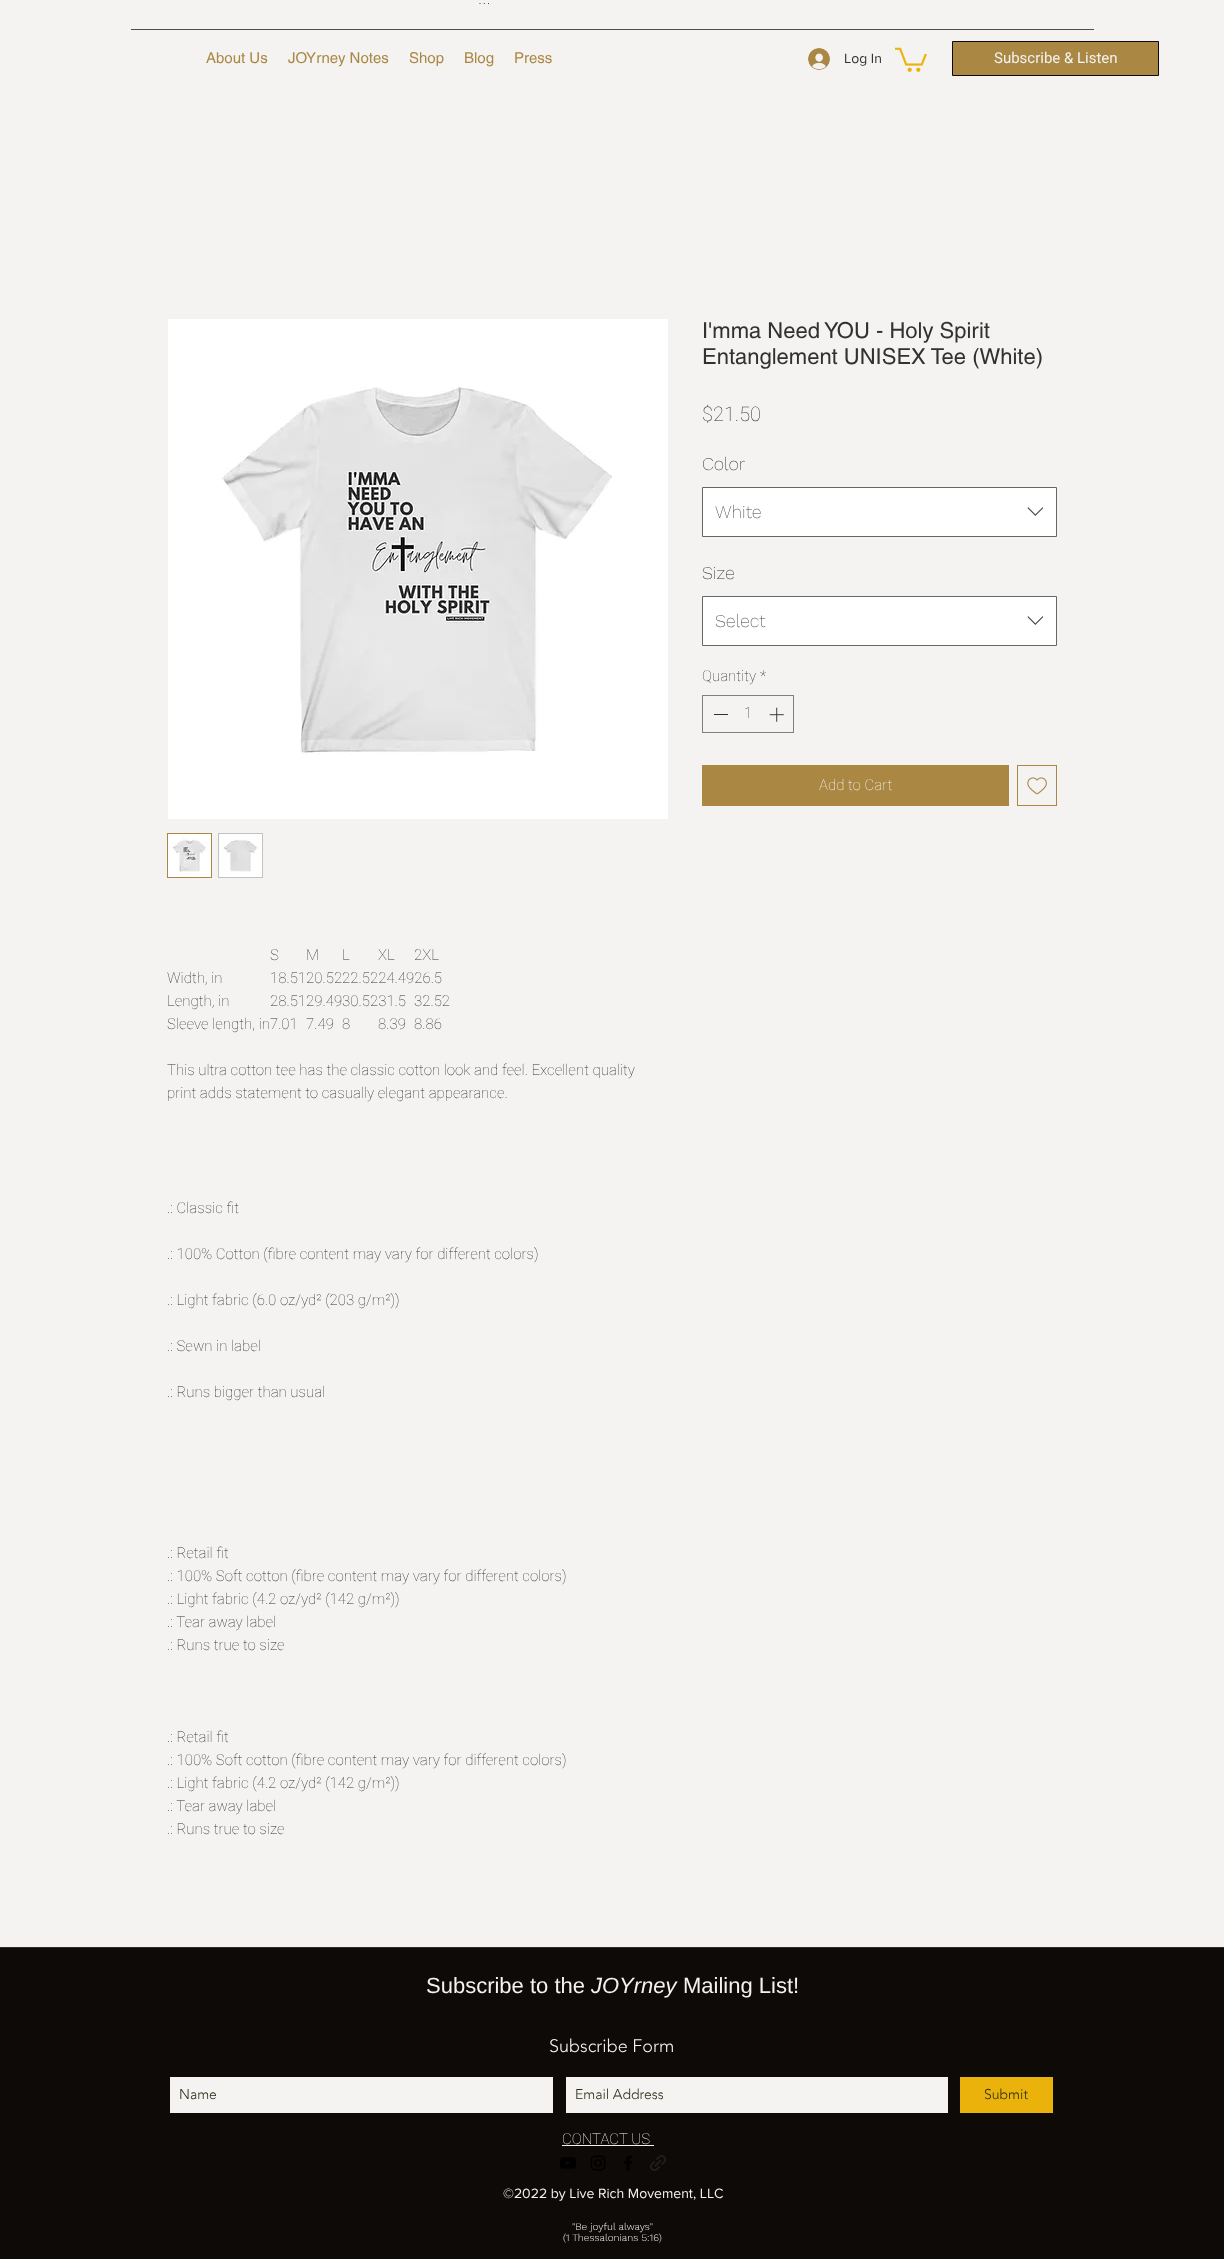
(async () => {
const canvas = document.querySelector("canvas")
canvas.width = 1224
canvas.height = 2259
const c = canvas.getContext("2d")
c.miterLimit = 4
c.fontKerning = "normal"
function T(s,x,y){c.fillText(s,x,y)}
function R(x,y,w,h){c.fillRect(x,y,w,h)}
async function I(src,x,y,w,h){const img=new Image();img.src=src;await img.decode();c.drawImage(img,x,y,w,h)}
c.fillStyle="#f4f3f2"
R(0,0,1224,2259)
c.font="italic 100 20px Roboto"
c.fillStyle="#0d0a07"
T("...",479,4)
c.fillStyle="#4e4e4d"
R(131,29,963,1)
c.font="15px helvetica"
c.fillStyle="#a84"
T("About Us",206,63)
T("JOYrney Notes",288,63)
T("Shop",409,63)
T("Blog",464,63)
T("Press",514,63)
await I("1.png",808,48,22,22)
c.font="14px 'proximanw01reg'"
c.fillStyle="#313130"
T("Log In",844,63)
await I("2.png",895,47,32,25)
c.fillStyle="#a84"
c.beginPath()
c.rect(952.5,41.5,206,34)
c.fill()
c.strokeStyle="#0d0a07"
c.stroke()
c.font="15px Roboto"
c.fillStyle="#f4f3f2"
T("Subscribe & Listen",994,63)
c.font="22px helvetica"
c.fillStyle="#313130"
T("I'mma Need YOU - Holy Spirit",702,338)
T("Entanglement UNISEX Tee (White)",702,364)
c.font="100 20px Roboto"
T("$21.50",702,421)
c.font="200 18px Work Sans"
T("Color",702,470)
c.fillStyle="#fff"
c.beginPath()
c.rect(702.5,487.5,354,49)
c.fill()
c.strokeStyle="#666"
c.stroke()
c.fillStyle="#444"
T("White",715,518)
await I("3.png",1027,507,17,9)
c.fillStyle="#313130"
T("Size",702,579)
c.fillStyle="#fff"
c.beginPath()
c.rect(702.5,596.5,354,49)
c.fill()
c.stroke()
c.fillStyle="#444"
T("Select",715,627)
await I("3.png",1027,616,17,9)
c.font="100 15px Roboto"
c.fillStyle="#313130"
T("Quantity",702,681)
T("*",760,681)
c.strokeStyle="#7f7f7e"
c.strokeRect(702.5,695.5,91,37)
R(714,714,14,1)
T("1",744,718)
await I("4.png",769,707,15,15)
c.fillStyle="#a84"
R(702,765,307,41)
c.fillStyle="#f4f3f2"
T("Add to Cart",819,790)
c.strokeStyle="#a84"
c.strokeRect(1017.5,765.5,39,40)
await I("5.png",1027,777,20,18)
await I("6.png",168,319,500,500)
c.strokeRect(167.5,833.5,44,44)
await I("7.png",168,834,43,43)
c.strokeStyle="#c3c2c2"
c.strokeRect(218.5,833.5,44,44)
await I("8.png",219,834,43,43)
c.fillStyle="#313130"
T("S",270,960)
T("M",306,960)
T("L",342,960)
T("XL",378,960)
T("2XL",414,960)
T("Width, in",167,983)
T("18.5120.5222.5224.4926.5",270,983)
T("Length, in",167,1006)
T("28.5129.4930.5231.5",270,1006)
T("32.52",414,1006)
T("Sleeve length, in7.01",167,1029)
T("7.49",306,1029)
T("8",342,1029)
T("8.39",378,1029)
T("8.86",414,1029)
T("This ultra cotton tee has the classic cotton look and feel. Excellent quality",167,1075)
T("print adds statement to casually elegant appearance.",167,1098)
T(".: Classic fit",167,1213)
T(".: 100% Cotton (fibre content may vary for different colors)",167,1259)
T(".: Light fabric (6.0 oz/yd² (203 g/m²))",167,1305)
T(".: Sewn in label",167,1351)
T(".: Runs bigger than usual",167,1397)
T(".: Retail fit",167,1558)
T(".: 100% Soft cotton (fibre content may vary for different colors)",167,1581)
T(".: Light fabric (4.2 oz/yd² (142 g/m²))",167,1604)
T(".: Tear away label",167,1627)
T(".: Runs true to size",167,1650)
T(".: Retail fit",167,1742)
T(".: 100% Soft cotton (fibre content may vary for different colors)",167,1765)
T(".: Light fabric (4.2 oz/yd² (142 g/m²))",167,1788)
T(".: Tear away label",167,1811)
T(".: Runs true to size",167,1834)
c.fillStyle="#0d0a07"
R(0,1948,1224,311)
c.fillStyle="#302d2a"
R(0,1947,1224,1)
c.font="22px Liberation Sans"
c.fillStyle="#f4f3f2"
T("Subscribe to the",426,1993)
c.font="italic 22px Liberation Sans"
T("JOYrney",591,1993)
c.font="22px Liberation Sans"
T("Mailing List!",683,1993)
c.font="300 18px 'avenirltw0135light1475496'"
T("Subscribe Form",549,2052)
R(170,2077,383,36)
c.font="300 14px 'avenirltw0135light1475496'"
c.fillStyle="#2c2f14"
T("Name",179,2099)
c.fillStyle="#f4f3f2"
R(566,2077,382,36)
c.fillStyle="#2c2f14"
T("Email Address",575,2099)
c.fillStyle="#ebb20c"
R(960,2077,93,36)
c.fillStyle="#2c2f14"
T("Submit",984,2099)
c.font="100 15px Roboto"
c.fillStyle="#f4f3f2"
T("CONTACT US",562,2144)
R(562,2145,92,1)
await I("9.png",560,2157,16,12)
await I("10.png",590,2155,16,16)
await I("11.png",624,2155,8,16)
await I("12.png",650,2155,16,16)
c.font="14px 'proximanw01reg'"
T("©2022 by Live Rich Movement, LLC",503,2198)
c.font="300 10px Work Sans"
T("\"Be joyful always\"",572,2230)
T("(1 Thessalonians 5:16)",563,2241)
})()
